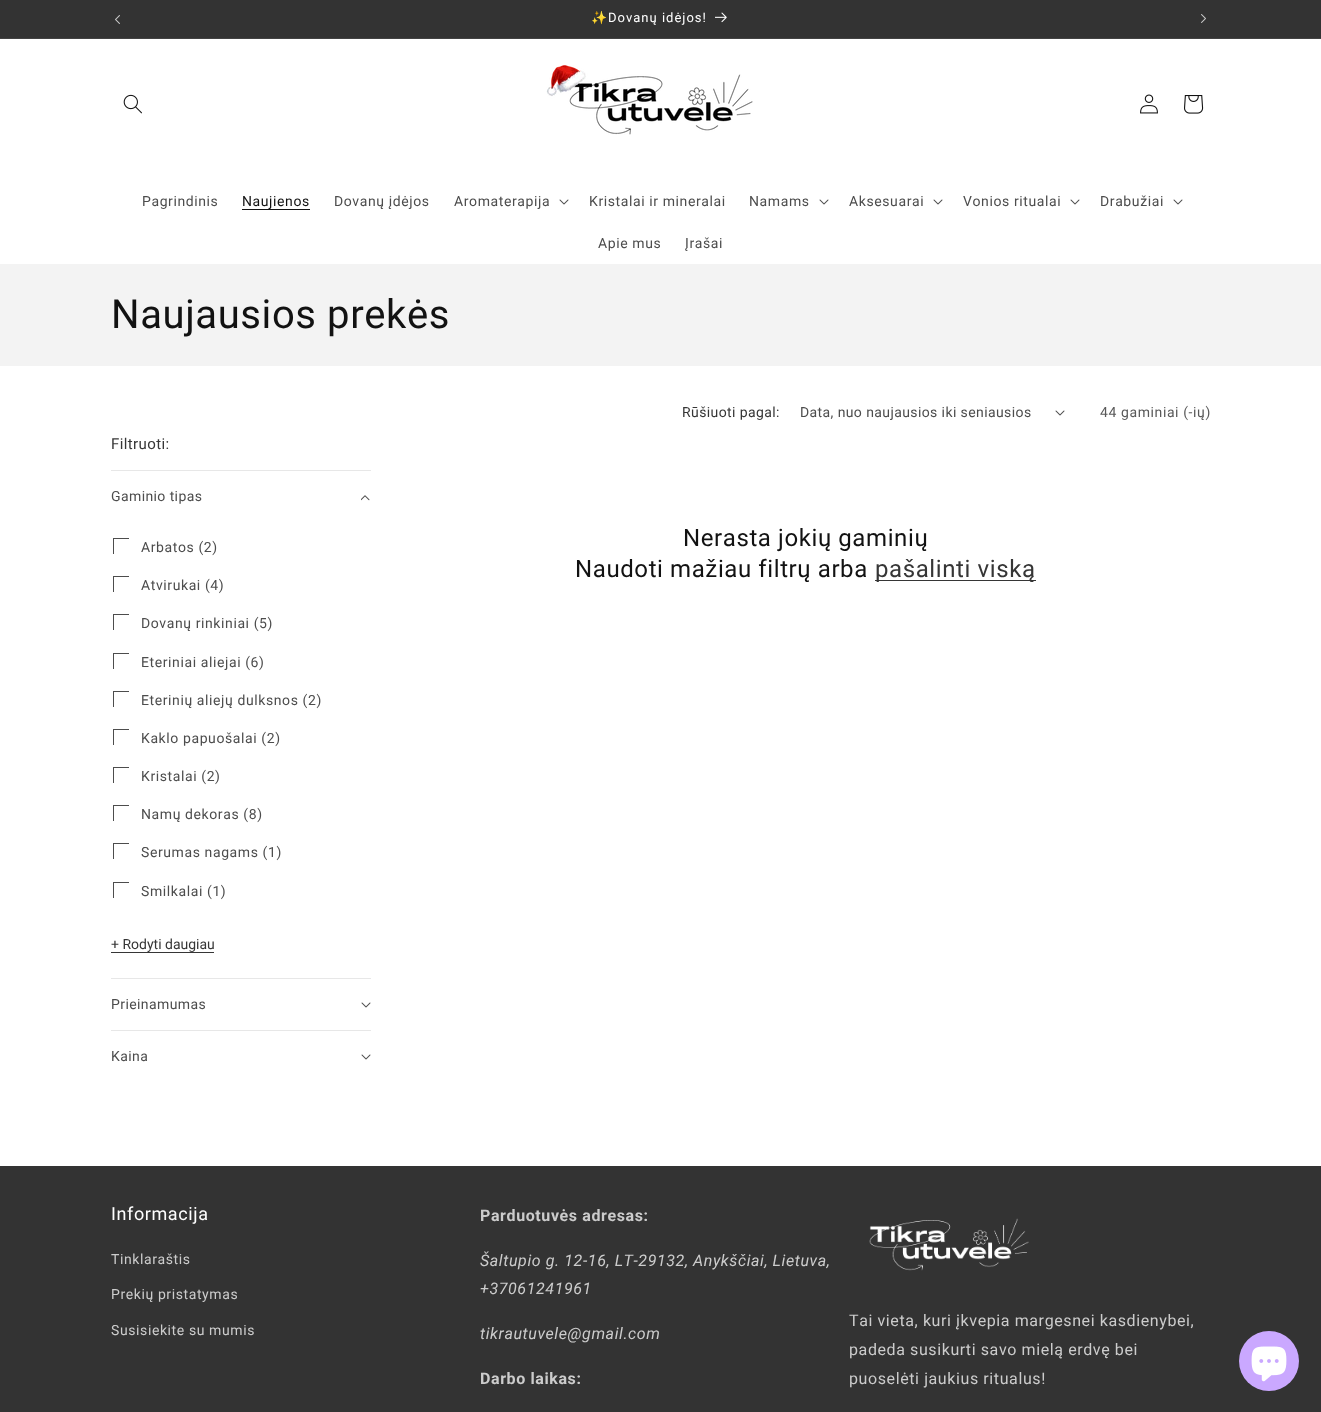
(async () => {
const canvas = document.querySelector("canvas")
canvas.width = 1321
canvas.height = 1412
const c = canvas.getContext("2d")
c.miterLimit = 4
c.fontKerning = "none"
function T(s,x,y){c.fillText(s,x,y)}
function R(x,y,w,h){c.fillRect(x,y,w,h)}
async function I(src,x,y,w,h){const img=new Image();img.src=src;await img.decode();c.drawImage(img,x,y,w,h)}
c.fillStyle="#fff"
R(0,0,1321,1412)
c.fillStyle="#333"
R(0,0,1321,38)
c.fillStyle="#434343"
R(0,38,1321,1)
await I("1.png",115,15,5,9)
c.letterSpacing="1px"
c.font="13px Noto Color Emoji"
c.fillStyle="#fff"
T("✨",591,22)
c.font="13px Roboto"
T("Dovanų idėjos!",608,22)
await I("2.png",715,12,12,11)
await I("3.png",1201,14,5,9)
await I("4.png",123,94,19,20)
await I("5.png",546,65,207,70)
await I("6.png",1140,94,18,20)
await I("7.png",1184,95,20,19)
c.letterSpacing="0.6px"
c.font="14px Roboto"
c.fillStyle="#4d4d4d"
T("Pagrindinis",142,206)
c.fillStyle="#121212"
T("Naujienos",242,206)
R(242,209,68,1)
c.fillStyle="#4d4d4d"
T("Dovanų įdėjos",334,206)
T("Aromaterapija",454,206)
await I("8.png",559,199,10,6)
T("Kristalai ir mineralai",589,206)
T("Namams",749,206)
await I("8.png",819,199,10,6)
T("Aksesuarai",849,206)
await I("8.png",933,199,10,6)
T("Vonios ritualai",963,206)
await I("8.png",1070,199,10,6)
T("Drabužiai",1100,206)
await I("8.png",1173,199,10,6)
T("Apie mus",598,248)
T("Įrašai",685,248)
c.fillStyle="#f3f3f3"
R(0,264,1321,102)
c.font="40px Roboto"
c.fillStyle="#121212"
T("Naujausios prekės",111,328)
c.letterSpacing="0.4px"
c.font="14px Roboto"
c.fillStyle="#363636"
T("Rūšiuoti pagal:",682,417)
c.fillStyle="#4d4d4d"
T("Data, nuo naujausios iki seniausios",800,417)
await I("8.png",1055,410,10,6)
c.letterSpacing="0.6px"
c.fillStyle="#595959"
T("44 gaminiai (-ių)",1100,417)
c.letterSpacing="0.4px"
c.font="15px Roboto"
c.fillStyle="#363636"
T("Filtruoti:",111,449)
c.fillStyle="#e7e7e7"
R(111,470,260,1)
c.font="14px Roboto"
c.fillStyle="#4d4d4d"
T("Gaminio tipas",111,501)
await I("9.png",361,495,9,6)
c.save()
c.beginPath()
c.rect(113,538,16,16)
c.clip()
c.strokeStyle="#4d4d4d"
c.strokeRect(113.5,538.5,16,16)
c.restore()
c.letterSpacing="0.6px"
T("Arbatos (2)",141,552)
c.save()
c.beginPath()
c.rect(113,576,16,16)
c.clip()
c.strokeStyle="#4d4d4d"
c.strokeRect(113.5,576.5,16,16)
c.restore()
T("Atvirukai (4)",141,590)
c.save()
c.beginPath()
c.rect(113,614,16,16)
c.clip()
c.strokeStyle="#4d4d4d"
c.strokeRect(113.5,614.5,16,16)
c.restore()
T("Dovanų rinkiniai (5)",141,628)
c.save()
c.beginPath()
c.rect(113,653,16,16)
c.clip()
c.strokeStyle="#4d4d4d"
c.strokeRect(113.5,653.5,16,16)
c.restore()
T("Eteriniai aliejai (6)",141,667)
c.save()
c.beginPath()
c.rect(113,691,16,16)
c.clip()
c.strokeStyle="#4d4d4d"
c.strokeRect(113.5,691.5,16,16)
c.restore()
T("Eterinių aliejų dulksnos (2)",141,705)
c.save()
c.beginPath()
c.rect(113,729,16,16)
c.clip()
c.strokeStyle="#4d4d4d"
c.strokeRect(113.5,729.5,16,16)
c.restore()
T("Kaklo papuošalai (2)",141,743)
c.save()
c.beginPath()
c.rect(113,767,16,16)
c.clip()
c.strokeStyle="#4d4d4d"
c.strokeRect(113.5,767.5,16,16)
c.restore()
T("Kristalai (2)",141,781)
c.save()
c.beginPath()
c.rect(113,805,16,16)
c.clip()
c.strokeStyle="#4d4d4d"
c.strokeRect(113.5,805.5,16,16)
c.restore()
T("Namų dekoras (8)",141,819)
c.save()
c.beginPath()
c.rect(113,843,16,16)
c.clip()
c.strokeStyle="#4d4d4d"
c.strokeRect(113.5,843.5,16,16)
c.restore()
T("Serumas nagams (1)",141,857)
c.save()
c.beginPath()
c.rect(113,882,16,16)
c.clip()
c.strokeStyle="#4d4d4d"
c.strokeRect(113.5,882.5,16,16)
c.restore()
T("Smilkalai (1)",141,896)
c.letterSpacing="0px"
c.fillStyle="#363636"
T("+ Rodyti daugiau",111,949)
R(111,952,103,1)
c.fillStyle="#e7e7e7"
R(111,978,260,1)
c.letterSpacing="0.4px"
c.fillStyle="#4d4d4d"
T("Prieinamumas",111,1009)
await I("8.png",361,1002,10,6)
c.fillStyle="#e7e7e7"
R(111,1030,260,1)
c.fillStyle="#4d4d4d"
T("Kaina",111,1061)
await I("8.png",361,1054,10,6)
c.letterSpacing="0.6px"
c.font="24px Roboto"
c.fillStyle="#121212"
T("Nerasta jokių gaminių",683,546)
T("Naudoti mažiau filtrų arba",575,577)
c.fillStyle="#363636"
R(875,580,161,1)
T("pašalinti viską",875,577)
c.fillStyle="#333"
R(0,1166,1321,246)
c.font="18px Roboto"
c.fillStyle="#fff"
T("Informacija",111,1220)
c.font="14px Roboto"
c.fillStyle="#ccc"
T("Tinklaraštis",111,1264)
T("Prekių pristatymas",111,1299)
T("Susisiekite su mumis",111,1335)
c.font="bold 16px Roboto"
T("Parduotuvės adresas:",480,1221)
c.font="italic 16px Roboto"
T("Šaltupio g. 12-16, LT-29132,",480,1266)
T("Anykščiai, Lietuva,",693,1266)
T("+37061241961",480,1294)
T("tikrautuvele@gmail.com",480,1339)
c.font="bold 16px Roboto"
T("Darbo laikas:",480,1384)
await I("10.png",869,1218,160,53)
c.font="16px Roboto"
T("Tai vieta, kuri įkvepia margesnei kasdienybei,",849,1326)
T("padeda susikurti savo mielą erdvę bei",849,1355)
T("puoselėti jaukius ritualus!",849,1384)
c.fillStyle="#caa8ff"
c.beginPath()
c.arc(1269,1361,30,0,7)
c.fill()
await I("11.png",1251,1346,36,36)
})()
